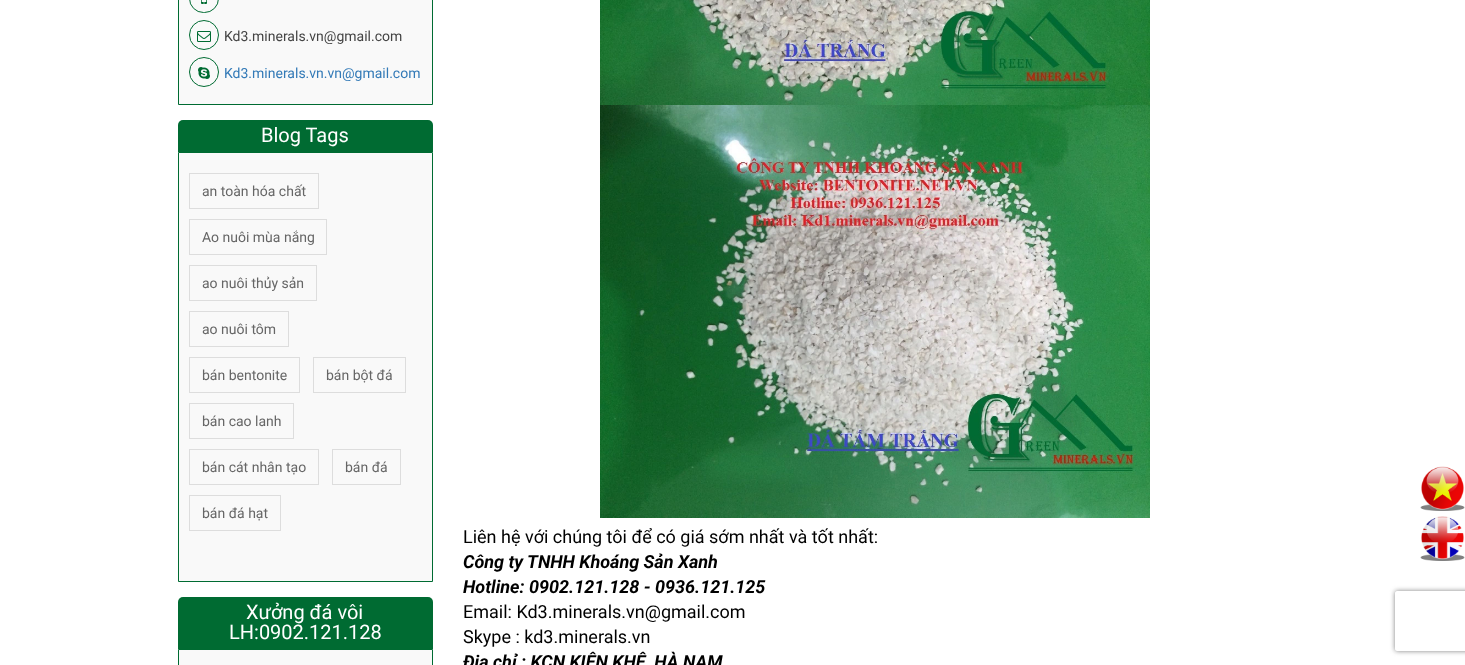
(async () => {
const canvas = document.querySelector("canvas")
canvas.width = 1465
canvas.height = 665
const c = canvas.getContext("2d")
c.miterLimit = 4
c.fontKerning = "normal"
function T(s,x,y){c.fillText(s,x,y)}
function R(x,y,w,h){c.fillRect(x,y,w,h)}
async function I(src,x,y,w,h){const img=new Image();img.src=src;await img.decode();c.drawImage(img,x,y,w,h)}
let path
c.fillStyle="#fff"
R(0,0,1465,665)
c.fillStyle="#f9f9f9"
c.beginPath()
c.rect(178.5,-.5,254,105)
c.fill()
c.strokeStyle="#006b32"
c.stroke()
c.beginPath()
c.roundRect(189.5,-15.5,29,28,14.5)
c.stroke()
await I("1.png",201,0,6,4)
c.beginPath()
c.arc(204,35,14.5,0,7)
c.stroke()
await I("2.png",197,31,14,11)
c.font="14px Roboto"
c.fillStyle="#444"
T("Kd3.minerals.vn@gmail.com",224,41)
c.beginPath()
c.arc(204,72,14.5,0,7)
c.stroke()
await I("3.png",198,67,12,12)
c.fillStyle="#337ab7"
T("Kd3.minerals.vn.vn@gmail.com",224,78)
c.fillStyle="#006b32"
c.beginPath()
c.roundRect(178,120,255,32,[5,5,0,0])
c.fill()
c.font="20px Roboto"
c.fillStyle="#fff"
T("Blog Tags",261,142)
c.fillStyle="#f9f9f9"
c.beginPath()
c.rect(178.5,152.5,254,429)
c.fill()
c.stroke()
c.strokeStyle="#ddd"
c.strokeRect(189.5,173.5,129,35)
c.font="14px Roboto"
c.fillStyle="#666"
T("an toàn hóa chất",202,196)
c.strokeRect(189.5,219.5,137,35)
T("Ao nuôi mùa nắng",202,242)
c.strokeRect(189.5,265.5,127,35)
T("ao nuôi thủy sản",202,288)
c.strokeRect(189.5,311.5,99,35)
T("ao nuôi tôm",202,334)
c.strokeRect(189.5,357.5,110,35)
T("bán bentonite",202,380)
c.strokeRect(313.5,357.5,92,35)
T("bán bột đá",326,380)
c.strokeRect(189.5,403.5,104,35)
T("bán cao lanh",202,426)
c.strokeRect(189.5,449.5,129,35)
T("bán cát nhân tạo",202,472)
c.strokeRect(332.5,449.5,68,35)
T("bán đá",345,472)
c.strokeRect(189.5,495.5,91,35)
T("bán đá hạt",202,518)
c.fillStyle="#006b32"
c.beginPath()
c.roundRect(178,597,255,52,[5,5,0,0])
c.fill()
c.font="20px Roboto"
c.fillStyle="#fff"
T("Xưởng đá vôi",246,619)
T("LH:0902.121.128",229,639)
c.fillStyle="#f9f9f9"
c.beginPath()
c.rect(178.5,649.5,254,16)
c.fill()
c.strokeStyle="#006b32"
c.stroke()
await I("4.png",600,0,550,105)
await I("5.png",600,105,550,413)
c.font="18px Roboto"
c.fillStyle="#000"
T("Liên hệ với chúng tôi để có giá sớm nhất và tốt nhất:",463,543)
c.font="italic bold 18px Roboto"
T("Công ty TNHH Khoáng Sản Xanh",463,568)
T("Hotline: 0902.121.128 - 0936.121.125",463,593)
c.font="18px Roboto"
T("Email: Kd3.minerals.vn@gmail.com",463,618)
T("Skype : kd3.minerals.vn",463,643)
c.font="italic bold 18px Roboto"
T("Địa chỉ : KCN KIỆN KHÊ, HÀ NAM",463,668)
await I("6.png",1420,466,45,45)
await I("7.png",1420,516,45,45)
c.save()
path = new Path2D("M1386 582h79v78h-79zm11 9h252c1 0 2 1 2 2v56c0 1-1 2-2 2h-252c-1 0-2-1-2-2v-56c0-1 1-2 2-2z")
c.clip(path,"evenodd")
c.fillStyle="#808080"
c.filter="blur(2.5px)"
c.beginPath()
c.roundRect(1395,591,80,60,2)
c.fill()
c.filter="none"
c.restore()
})()
